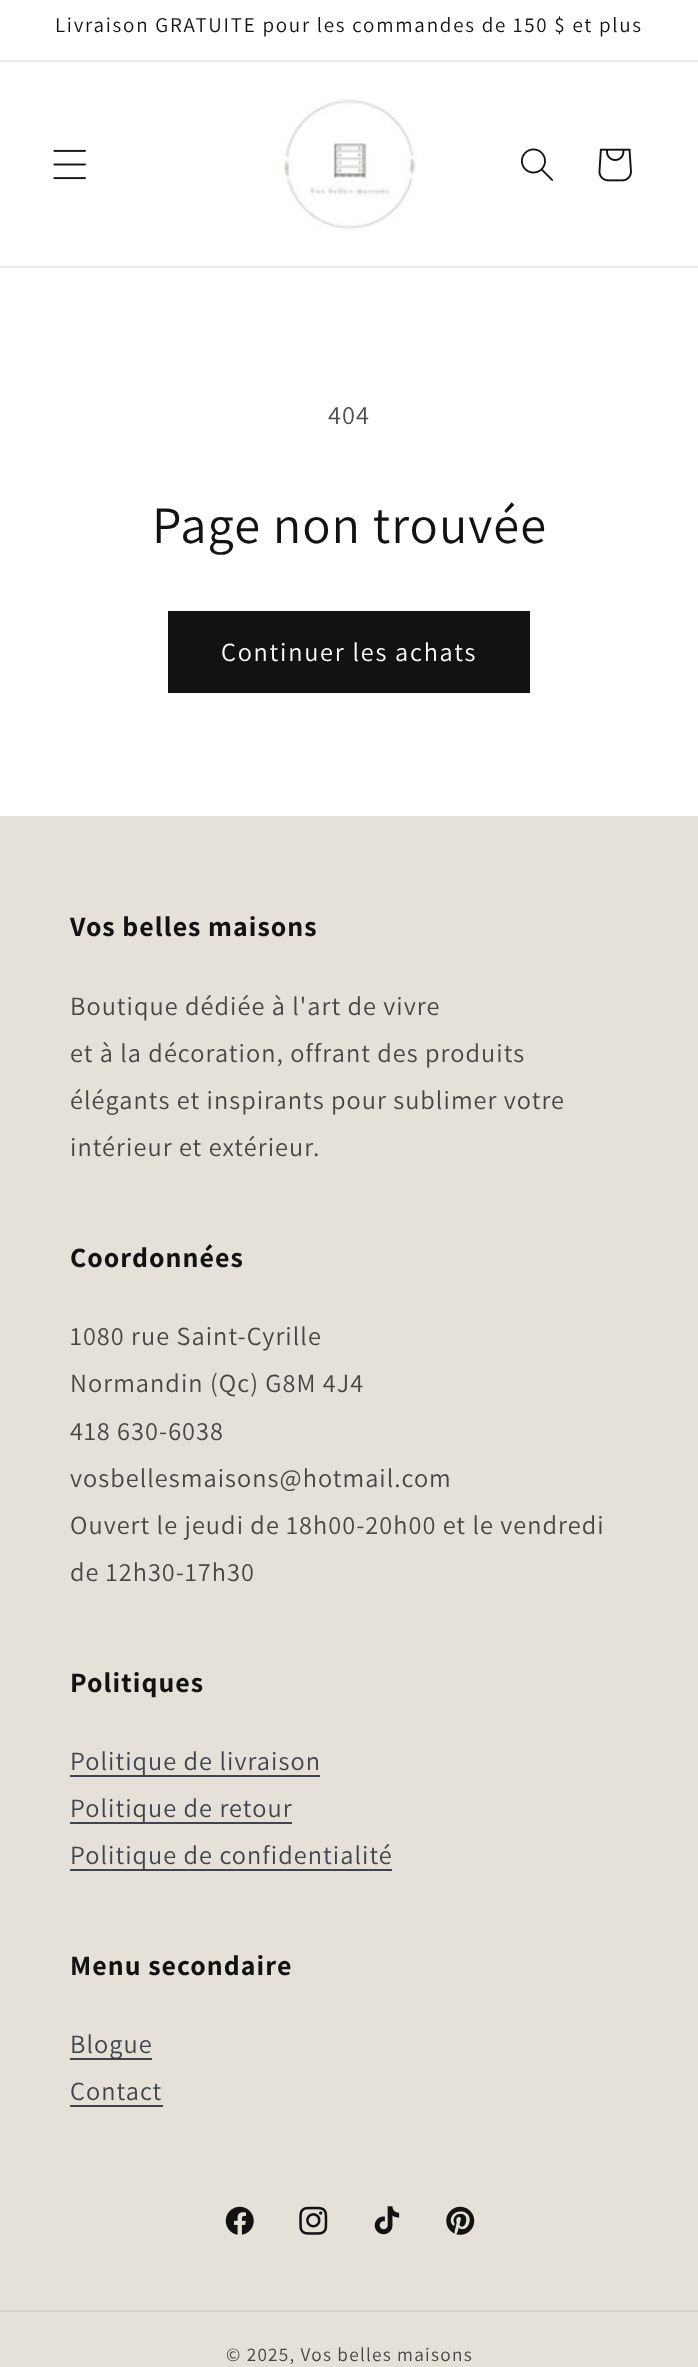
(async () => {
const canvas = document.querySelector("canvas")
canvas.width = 698
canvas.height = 2367
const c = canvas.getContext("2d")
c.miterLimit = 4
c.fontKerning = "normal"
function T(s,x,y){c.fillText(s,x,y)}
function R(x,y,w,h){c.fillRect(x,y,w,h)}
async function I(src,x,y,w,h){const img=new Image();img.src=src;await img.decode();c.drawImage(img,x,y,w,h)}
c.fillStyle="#fff"
R(0,0,698,2367)
c.fillStyle="#ececec"
R(0,60,698,2)
c.letterSpacing="1.75px"
c.font="21px Assistant"
c.fillStyle="#121212"
T("Livraison GRATUITE pour les commandes de 150 $ et plus",55,32)
c.fillStyle="#ececec"
R(0,266,698,2)
await I("1.png",53,149,33,31)
await I("2.png",283,99,135,131)
await I("3.png",521,148,32,33)
await I("4.png",598,148,34,34)
c.letterSpacing="1.05px"
c.font="26.25px Assistant"
c.fillStyle="#4d4d4d"
T("404",328,424)
c.font="52.5px Assistant"
c.fillStyle="#121212"
T("Page non trouvée",152,543)
R(168,611,362,82)
c.letterSpacing="1.75px"
c.font="26.25px Assistant"
c.fillStyle="#fff"
T("Continuer les achats",221,661)
c.fillStyle="#e5e0d8"
R(0,816,698,1551)
c.letterSpacing="1.05px"
c.font="bold 28px Assistant"
c.fillStyle="#121212"
T("Vos belles maisons",70,936)
c.font="26.25px Assistant"
c.fillStyle="#474644"
T("Boutique dédiée à l'art de vivre",70,1015)
T("et à la décoration, offrant des produits",70,1062)
T("élégants et inspirants pour sublimer votre",70,1109)
T("intérieur et extérieur.",70,1156)
c.font="bold 28px Assistant"
c.fillStyle="#121212"
T("Coordonnées",70,1267)
c.font="26.25px Assistant"
c.fillStyle="#474644"
T("1080 rue Saint-Cyrille",70,1345)
T("Normandin (Qc) G8M 4J4",70,1392)
T("418 630-6038",70,1440)
T("vosbellesmaisons@hotmail.com",70,1487)
T("Ouvert le jeudi de 18h00-20h00 et le vendredi",70,1534)
T("de 12h30-17h30",70,1581)
c.font="bold 28px Assistant"
c.fillStyle="#121212"
T("Politiques",70,1692)
c.fillStyle="#41444c"
R(70,1775,250,2)
c.font="26.25px Assistant"
T("Politique de livraison",70,1770)
R(70,1822,222,2)
T("Politique de retour",70,1817)
R(70,1869,322,2)
T("Politique de confidentialité",70,1864)
c.font="bold 28px Assistant"
c.fillStyle="#121212"
T("Menu secondaire",70,1975)
c.fillStyle="#41444c"
R(70,2058,82,2)
c.font="26.25px Assistant"
T("Blogue",70,2053)
T("Contact",70,2100)
R(70,2105,93,2)
await I("5.png",225,2206,29,29)
await I("6.png",299,2206,29,29)
await I("7.png",374,2206,26,29)
await I("8.png",446,2206,29,29)
c.fillStyle="#d4d0c8"
R(0,2310,698,2)
c.letterSpacing="1.25px"
c.font="19.25px Assistant"
c.fillStyle="#474644"
T("© 2025, Vos belles maisons",226,2361)
})()
